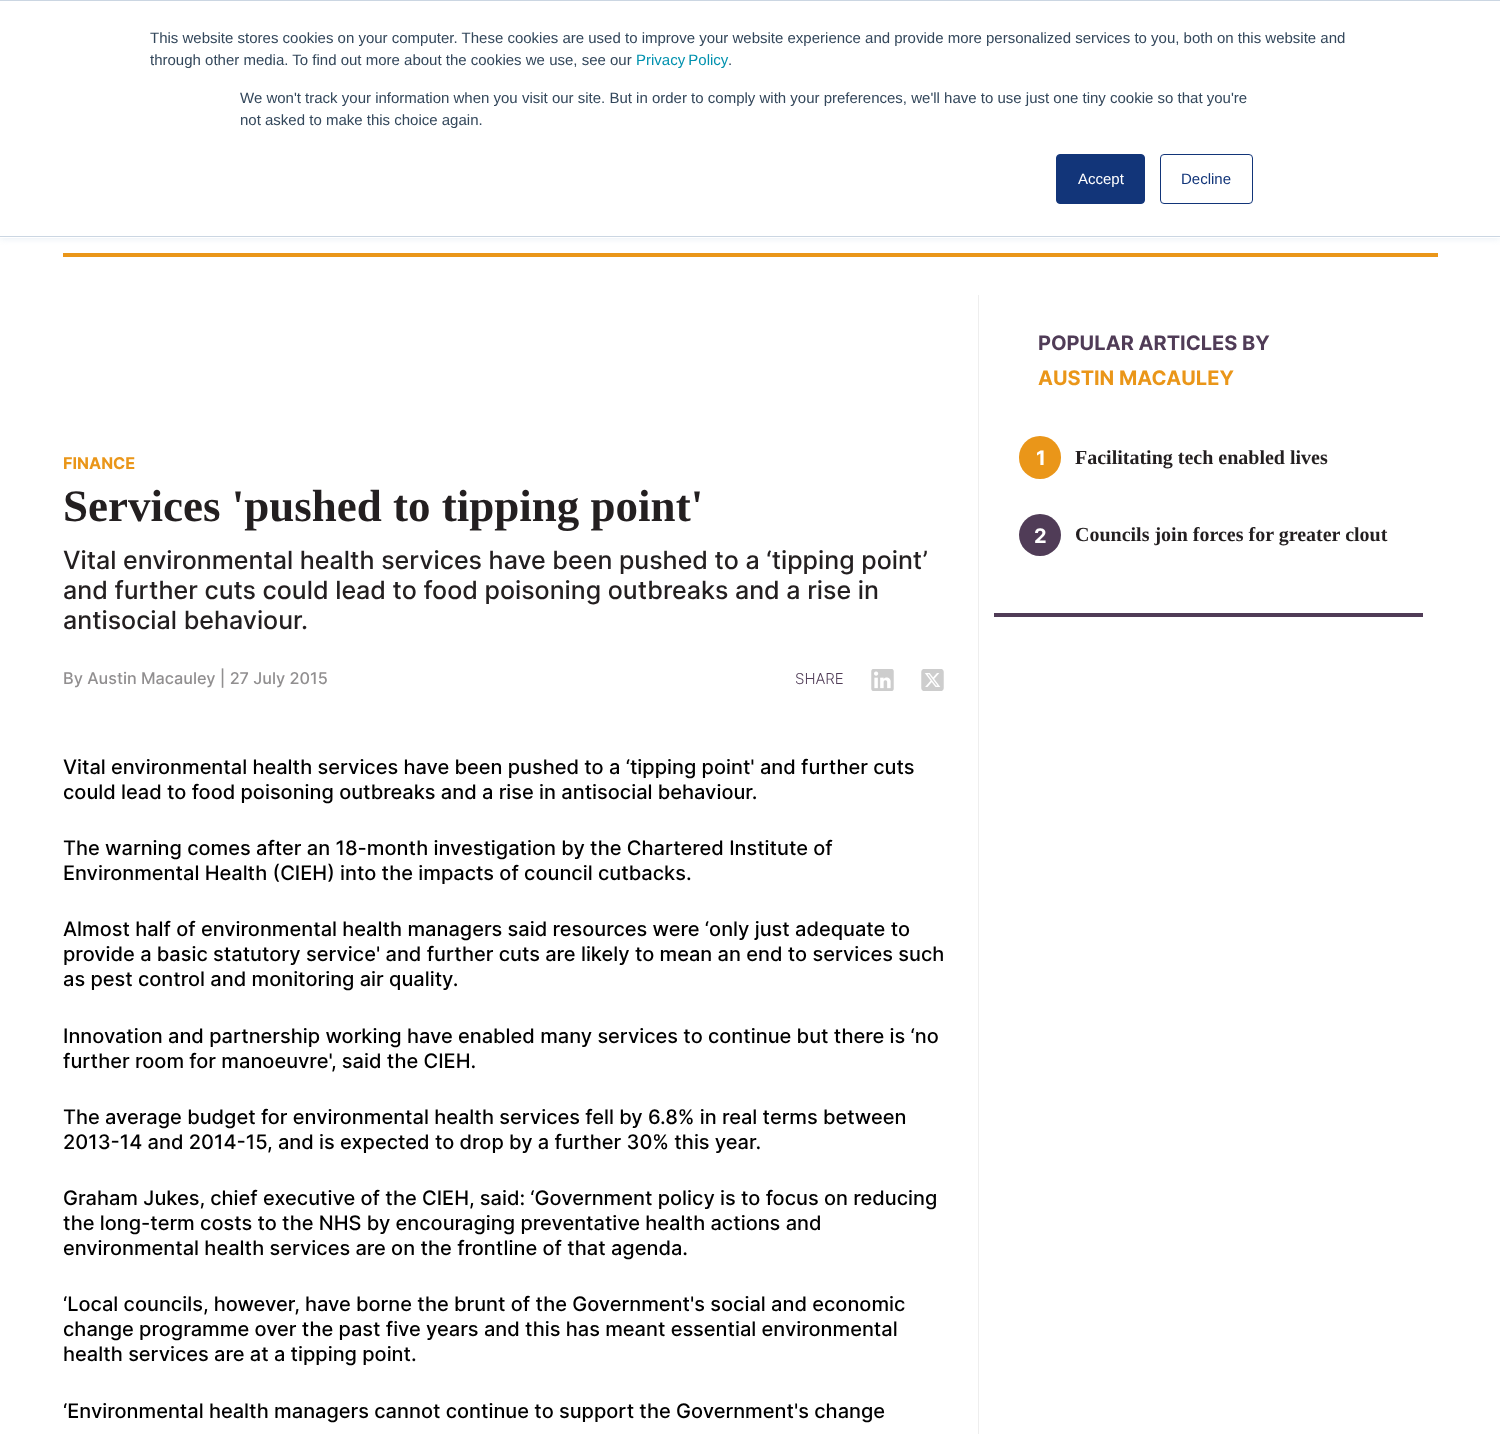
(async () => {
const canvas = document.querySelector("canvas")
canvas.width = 1500
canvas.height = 1434
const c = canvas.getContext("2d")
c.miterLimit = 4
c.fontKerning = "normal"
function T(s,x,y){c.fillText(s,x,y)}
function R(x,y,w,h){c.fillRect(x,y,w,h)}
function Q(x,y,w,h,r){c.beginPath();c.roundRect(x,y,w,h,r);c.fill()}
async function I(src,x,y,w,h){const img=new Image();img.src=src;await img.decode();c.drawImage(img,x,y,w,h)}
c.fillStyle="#fff"
R(0,0,1500,1434)
c.fillStyle="#eaf0f6"
c.filter="blur(3px)"
c.beginPath()
c.rect(0,1,1500,238)
c.fill()
c.filter="none"
c.fillStyle="#fff"
R(0,1,1500,237)
c.fillStyle="#cbd6e2"
R(0,0,1500,1)
R(0,236,1500,1)
c.font="15px Liberation Sans"
c.fillStyle="#33475b"
T("This website stores cookies on your computer. These cookies are used to improve your website experience and provide more personalized services to you, both on this website and",150,43)
T("through other media. To find out more about the cookies we use, see our",150,65)
c.wordSpacing="-1px"
c.fillStyle="#0091ae"
T("Privacy Policy",636,65)
c.wordSpacing="0px"
c.fillStyle="#33475b"
T(".",728,65)
T("We won't track your information when you visit our site. But in order to comply with your preferences, we'll have to use just one tiny cookie so that you're",240,103)
T("not asked to make this choice again.",240,125)
c.fillStyle="#123579"
c.beginPath()
c.roundRect(1056.5,154.5,88,49,3.5)
c.fill()
c.strokeStyle="#123579"
c.stroke()
c.fillStyle="#fff"
T("Accept",1078,184)
c.beginPath()
c.roundRect(1160.5,154.5,92,49,3.5)
c.stroke()
c.fillStyle="#123579"
T("Decline",1181,184)
c.fillStyle="#ea9619"
R(63,253,1375,4)
c.fillStyle="#eee"
R(978,295,1,1139)
c.font="bold 16.25px Inter"
c.fillStyle="#ea9619"
T("FINANCE",63,469)
c.font="bold 45px Liberation Serif"
c.fillStyle="#231f20"
T("Services 'pushed to tipping point'",63,521)
c.font="500 25px Inter"
T("Vital environmental health services have been pushed to a ‘tipping point’",63,569)
T("and further cuts could lead to food poisoning outbreaks and a rise in",63,599)
T("antisocial behaviour.",63,629)
c.font="500 16.25px Inter"
c.fillStyle="#918f90"
T("By Austin Macauley | 27 July 2015",63,684)
c.font="300 15px Inter"
c.fillStyle="#503c57"
T("SHARE",795,684)
await I("1.png",871,669,23,22)
await I("2.png",921,669,23,22)
c.font="500 20px Inter"
c.fillStyle="#000"
T("Vital environmental health services have been pushed to a ‘tipping point' and further cuts",63,774)
T("could lead to food poisoning outbreaks and a rise in antisocial behaviour.",63,799)
T("The warning comes after an 18-month investigation by the Chartered Institute of",63,855)
T("Environmental Health (CIEH) into the impacts of council cutbacks.",63,880)
T("Almost half of environmental health managers said resources were ‘only just adequate to",63,936)
T("provide a basic statutory service' and further cuts are likely to mean an end to services such",63,961)
T("as pest control and monitoring air quality.",63,986)
T("Innovation and partnership working have enabled many services to continue but there is ‘no",63,1043)
T("further room for manoeuvre', said the CIEH.",63,1068)
T("The average budget for environmental health services fell by 6.8% in real terms between",63,1124)
T("2013-14 and 2014-15, and is expected to drop by a further 30% this year.",63,1149)
T("Graham Jukes, chief executive of the CIEH, said: ‘Government policy is to focus on reducing",63,1205)
T("the long-term costs to the NHS by encouraging preventative health actions and",63,1230)
T("environmental health services are on the frontline of that agenda.",63,1255)
T("‘Local councils, however, have borne the brunt of the Government's social and economic",63,1311)
T("change programme over the past five years and this has meant essential environmental",63,1336)
T("health services are at a tipping point.",63,1361)
T("‘Environmental health managers cannot continue to support the Government's change",63,1418)
c.fillStyle="#503c57"
R(994,613,429,4)
c.font="bold 20px Inter"
T("POPULAR ARTICLES BY",1038,350)
c.fillStyle="#ea9619"
T("AUSTIN MACAULEY",1038,385)
Q(1019,436,42,43,21)
c.fillStyle="#fff"
T("1",1036,465)
c.font="bold 20px Liberation Serif"
c.fillStyle="#231f20"
T("Facilitating tech enabled lives",1075,464)
c.fillStyle="#503c57"
c.beginPath()
c.arc(1040,535,21,0,7)
c.fill()
c.font="bold 20px Inter"
c.fillStyle="#fff"
T("2",1034,543)
c.font="bold 20px Liberation Serif"
c.fillStyle="#231f20"
T("Councils join forces for greater clout",1075,541)
})()
